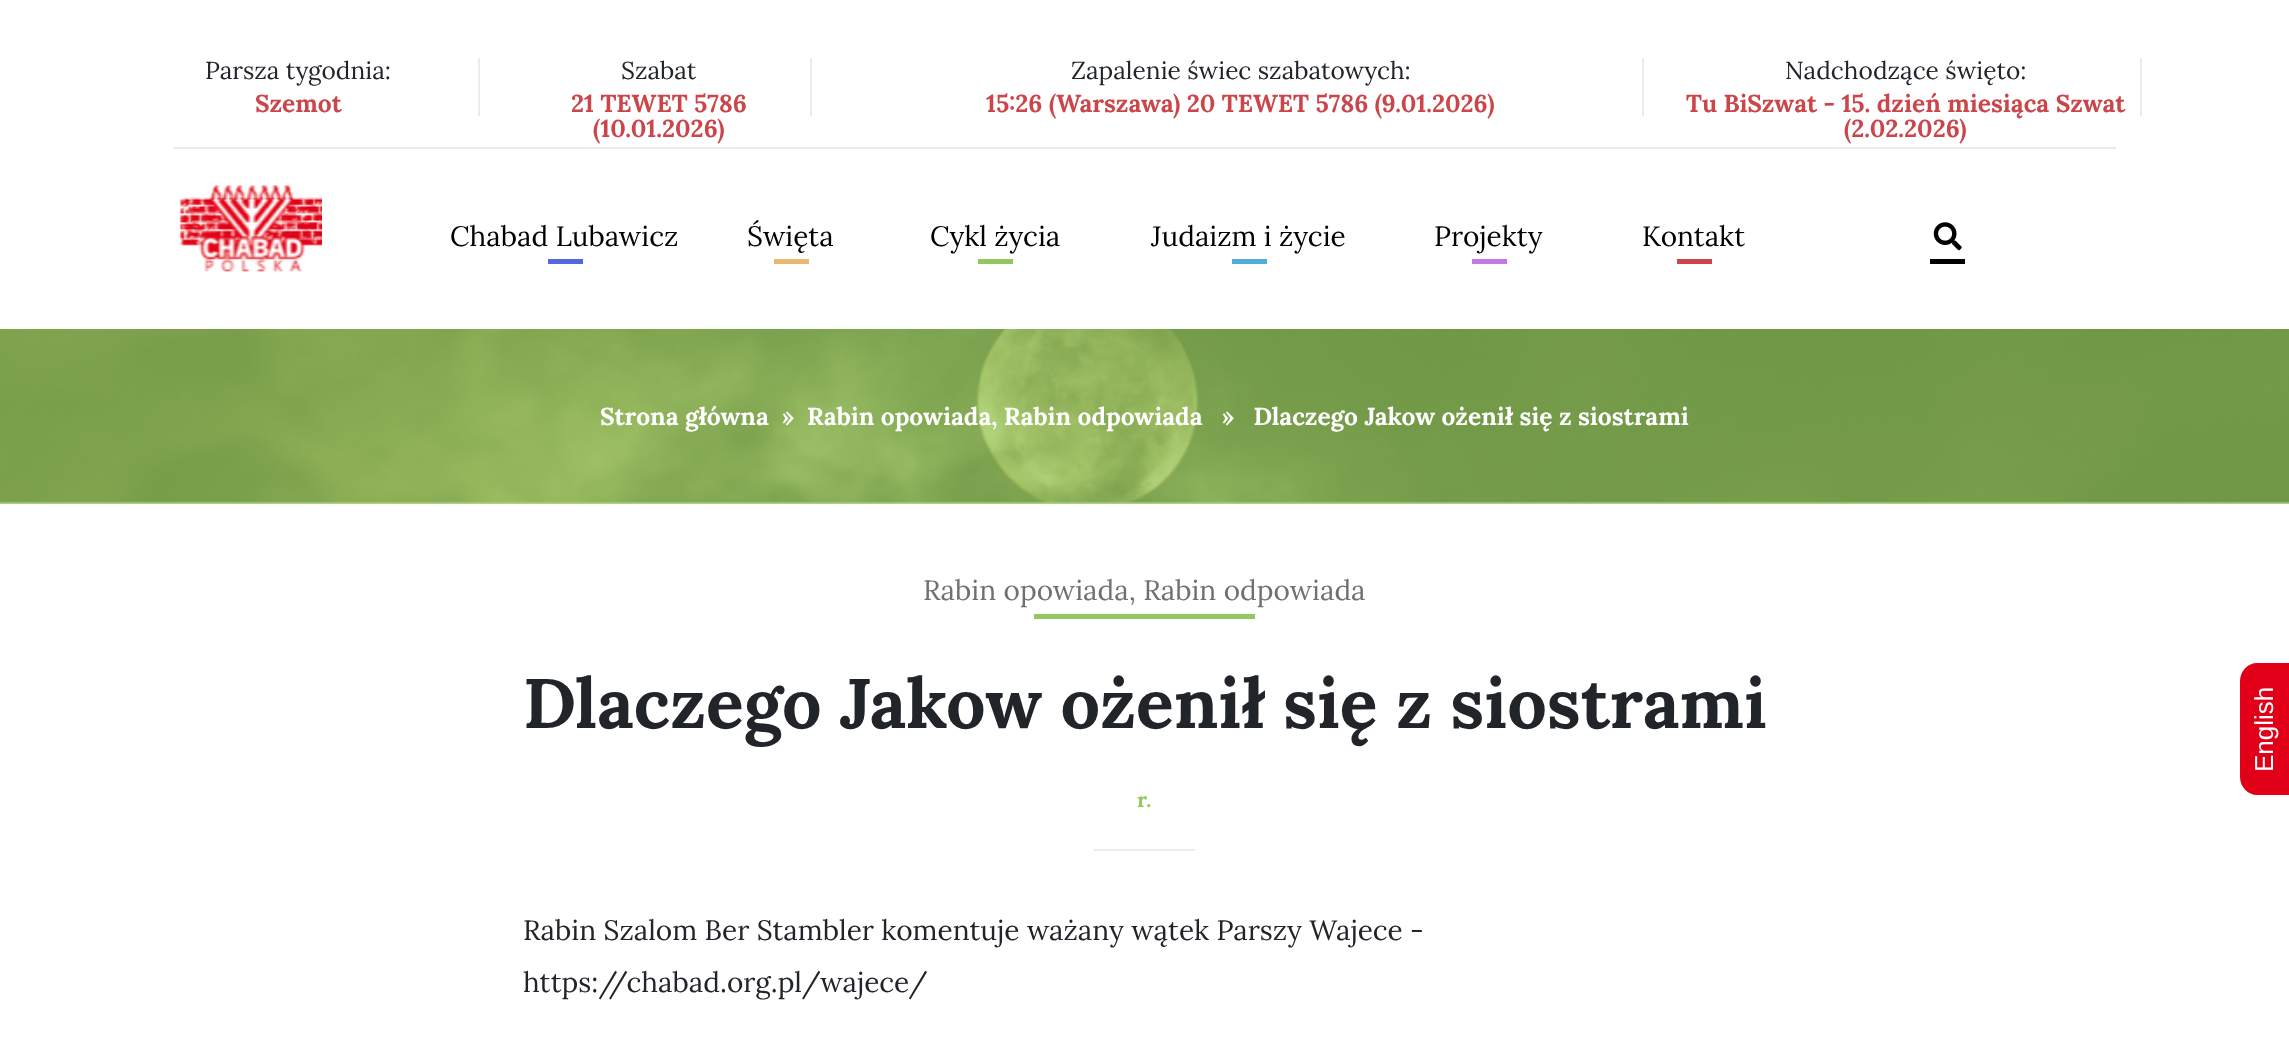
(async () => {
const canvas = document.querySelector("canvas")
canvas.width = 2289
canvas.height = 1062
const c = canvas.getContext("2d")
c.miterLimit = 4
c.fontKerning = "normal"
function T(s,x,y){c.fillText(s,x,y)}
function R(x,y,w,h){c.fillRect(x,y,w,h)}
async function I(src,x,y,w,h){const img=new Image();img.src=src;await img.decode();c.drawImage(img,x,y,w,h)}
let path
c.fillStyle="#fff"
R(0,0,2289,1062)
c.fillStyle="#add686"
R(0,501,2289,3)
c.fillStyle="#ebebeb"
R(173,147,1943,2)
R(478,58,2,58)
c.font="24.5px Lora"
c.fillStyle="#212529"
T("Parsza tygodnia:",205,79)
c.font="bold 24.5px Lora"
c.fillStyle="#cb464a"
T("Szemot",255,112)
c.fillStyle="#ebebeb"
R(810,58,2,58)
c.font="24.5px Lora"
c.fillStyle="#212529"
T("Szabat",621,79)
c.font="bold 24.5px Lora"
c.fillStyle="#cb464a"
T("21 TEWET 5786",571,112)
T("(10.01.2026)",593,137)
c.fillStyle="#ebebeb"
R(1642,58,2,58)
c.font="24.5px Lora"
c.fillStyle="#212529"
T("Zapalenie świec szabatowych:",1071,79)
c.font="bold 24.5px Lora"
c.fillStyle="#cb464a"
T("15:26 (Warszawa) 20 TEWET 5786 (9.01.2026)",986,112)
c.fillStyle="#ebebeb"
R(2140,58,2,58)
c.font="24.5px Lora"
c.fillStyle="#212529"
T("Nadchodzące święto:",1785,79)
c.font="bold 24.5px Lora"
c.fillStyle="#cb464a"
T("Tu BiSzwat - 15. dzień miesiąca Szwat",1686,112)
T("(2.02.2026)",1844,137)
await I("1.png",179,185,143,87)
c.font="28px Lora"
c.fillStyle="#000"
T("Chabad Lubawicz",450,246)
c.fillStyle="#5467de"
R(548,259,35,5)
c.fillStyle="#000"
T("Święta",747,246)
c.fillStyle="#e9b872"
R(774,259,35,5)
c.fillStyle="#000"
T("Cykl życia",930,246)
c.fillStyle="#92c75d"
R(978,259,35,5)
c.fillStyle="#000"
T("Judaizm i życie",1151,246)
c.fillStyle="#4fadd8"
R(1232,259,35,5)
c.fillStyle="#000"
T("Projekty",1434,246)
c.fillStyle="#c778e8"
R(1472,259,35,5)
c.fillStyle="#000"
T("Kontakt",1642,246)
c.fillStyle="#cb464a"
R(1677,259,35,5)
await I("2.png",1933,222,29,29)
c.fillStyle="#000"
R(1930,259,35,5)
await I("3.png",0,329,2289,175)
c.font="bold 24.5px Lora"
c.fillStyle="#fff"
T("Strona główna",600,425)
T("»",782,425)
T("Rabin opowiada, Rabin odpowiada",807,425)
T("»   Dlaczego Jakow ożenił się z siostrami",1222,425)
c.font="28px Lora"
c.fillStyle="#707070"
T("Rabin opowiada, Rabin odpowiada",923,600)
c.fillStyle="#92c85d"
R(1034,614,221,5)
c.font="bold 70px Lora"
c.fillStyle="#212529"
T("Dlaczego Jakow ożenił się z siostrami",523,728)
c.fillStyle="#ebebeb"
R(1094,849,101,2)
c.font="bold 21px Lora"
c.fillStyle="#92c85d"
T("r.",1137,807)
c.font="28px Lora"
c.fillStyle="#212529"
T("Rabin Szalom Ber Stambler komentuje ważany wątek Parszy Wajece -",523,940)
T("https://chabad.org.pl/wajece/",523,992)
c.fillStyle="#e20019"
path = new Path2D("M2240 777v-96c0-10 8-18 17-18h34v132h-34c-9 0-17-8-17-18z")
c.fill(path)
c.font="26px Liberation Sans"
c.fillStyle="#fff"
c.save()
c.translate(2273,772)
c.rotate(-90 * Math.PI / 180)
c.fillText("English",0,0)
c.restore()
})()
